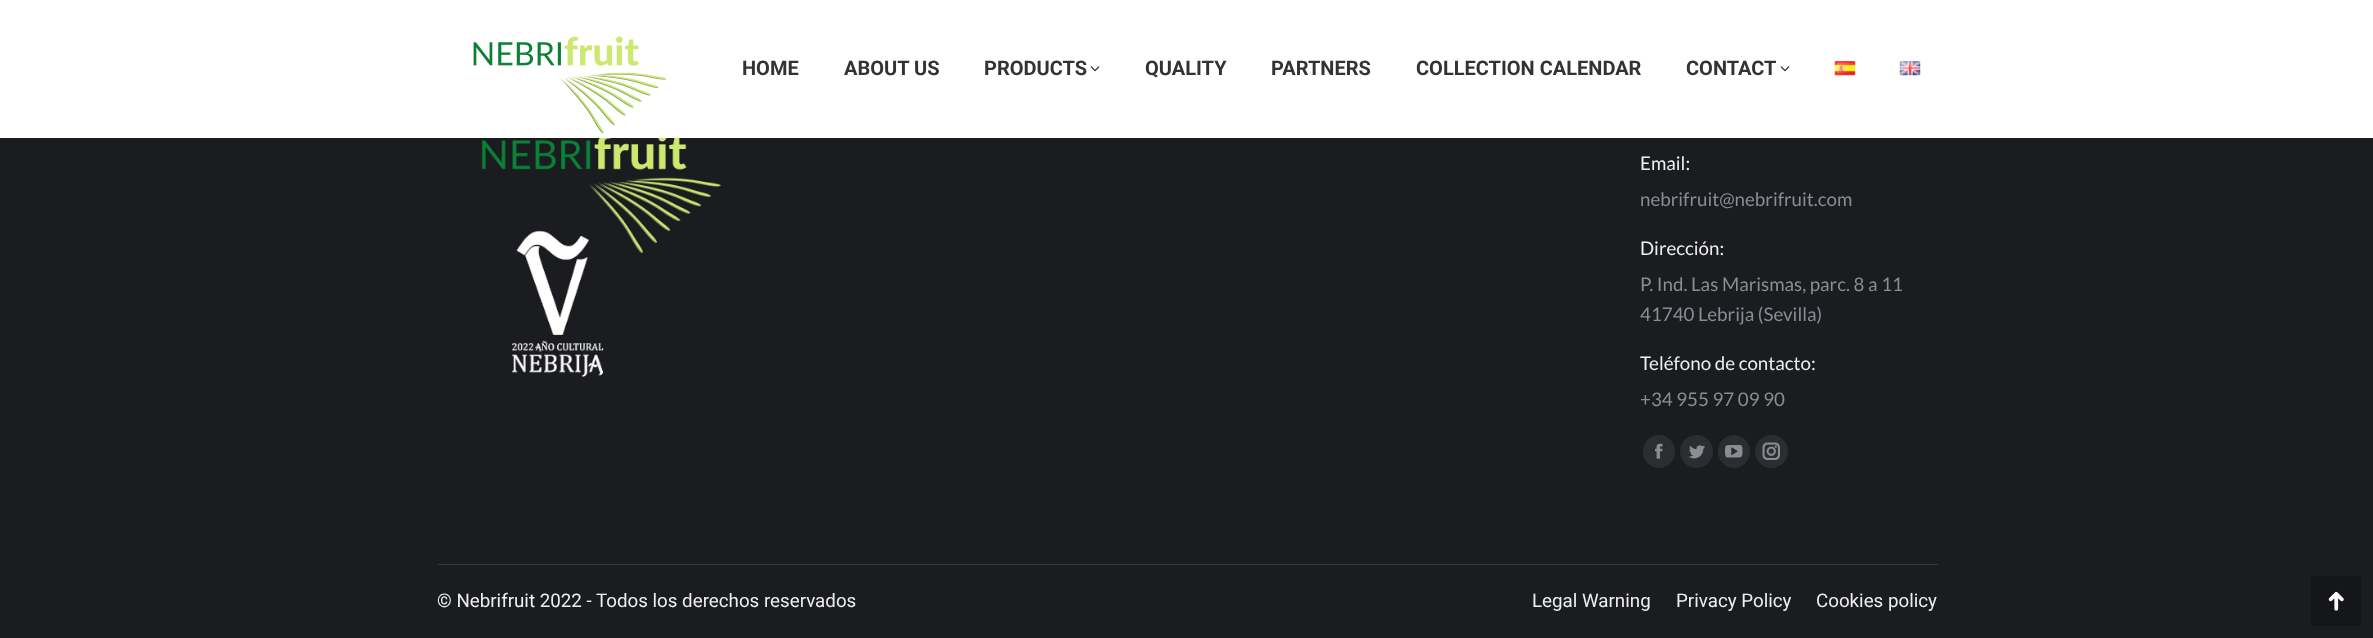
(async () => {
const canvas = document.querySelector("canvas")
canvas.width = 2373
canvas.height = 638
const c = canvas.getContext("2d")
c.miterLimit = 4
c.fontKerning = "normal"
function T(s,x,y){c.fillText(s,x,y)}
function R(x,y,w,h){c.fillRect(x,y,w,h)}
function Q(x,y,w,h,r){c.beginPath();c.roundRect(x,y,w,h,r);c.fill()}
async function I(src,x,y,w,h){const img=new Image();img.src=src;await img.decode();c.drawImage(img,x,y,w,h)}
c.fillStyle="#1a1c20"
R(0,0,2373,638)
c.fillStyle="#fff"
R(0,0,2373,138)
await I("1.png",473,36,194,98)
c.font="bold 20px Roboto"
c.fillStyle="#333"
T("HOME",742,75)
T("ABOUT US",844,75)
T("PRODUCTS",984,75)
await I("2.png",1090,66,10,6)
T("QUALITY",1145,75)
T("PARTNERS",1271,75)
T("COLLECTION CALENDAR",1416,75)
T("CONTACT",1686,75)
await I("2.png",1780,66,10,6)
await I("3.png",1834,61,22,15)
await I("4.png",1899,61,22,15)
await I("5.png",481,138,240,239)
c.font="18.75px Lato"
c.fillStyle="#eee"
T("Email:",1640,170)
c.fillStyle="#8b8d94"
T("nebrifruit@nebrifruit.com",1640,206)
c.fillStyle="#eee"
T("Dirección:",1640,255)
c.fillStyle="#8b8d94"
T("P. Ind. Las Marismas, parc. 8 a 11",1640,291)
T("41740 Lebrija (Sevilla)",1640,321)
c.fillStyle="#eee"
T("Teléfono de contacto:",1640,370)
c.fillStyle="#8b8d94"
T("+34 955 97 09 90",1640,406)
c.fillStyle="#2b2d31"
Q(1643,435,32,33,16)
await I("6.png",1655,443,8,16)
c.beginPath()
c.arc(1696.5,451.5,16.5,0,7)
c.fill()
await I("7.png",1689,445,16,14)
Q(1718,435,32,33,16)
await I("8.png",1725,445,18,13)
c.beginPath()
c.arc(1771.5,451.5,16.5,0,7)
c.fill()
await I("9.png",1762,442,18,18)
c.fillStyle="#35373b"
R(438,564,1500,1)
c.font="18.75px Roboto"
c.fillStyle="#eee"
T("© Nebrifruit 2022 - Todos los derechos reservados",437,607)
T("Legal Warning",1532,607)
T("Privacy Policy",1676,607)
T("Cookies policy",1816,607)
c.fillStyle="#15161a"
R(2311,576,50,50)
await I("10.png",2328,591,16,20)
})()
